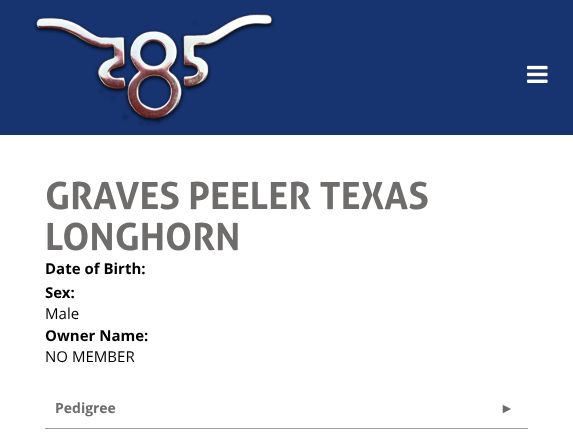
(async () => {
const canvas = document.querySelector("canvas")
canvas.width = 573
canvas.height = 447
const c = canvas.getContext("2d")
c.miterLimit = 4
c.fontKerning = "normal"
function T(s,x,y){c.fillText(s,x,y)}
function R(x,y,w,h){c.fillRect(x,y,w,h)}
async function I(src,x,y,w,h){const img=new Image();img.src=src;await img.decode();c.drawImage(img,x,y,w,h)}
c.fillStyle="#fff"
R(0,0,573,447)
c.fillStyle="#173471"
R(0,0,573,135)
await I("1.png",34,13,241,113)
await I("2.png",527,65,21,18)
c.font="bold 37.5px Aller"
c.fillStyle="#6f6d6c"
T("GRAVES PEELER TEXAS",45,209)
T("LONGHORN",45,250)
c.font="bold 15px Open Sans"
c.fillStyle="#000"
T("Date of Birth:",45,274)
T("Sex:",45,298)
c.font="15px Open Sans"
T("Male",45,319)
c.font="bold 15px Open Sans"
T("Owner Name:",45,341)
c.font="15px Open Sans"
T("NO MEMBER",45,362)
c.fillStyle="#9b9999"
R(45,428,483,1)
c.font="bold 14px Open Sans"
c.fillStyle="#6f6d6c"
T("Pedigree",55,413)
c.font="bold 14px Liberation Sans"
T("►",500,413)
})()
